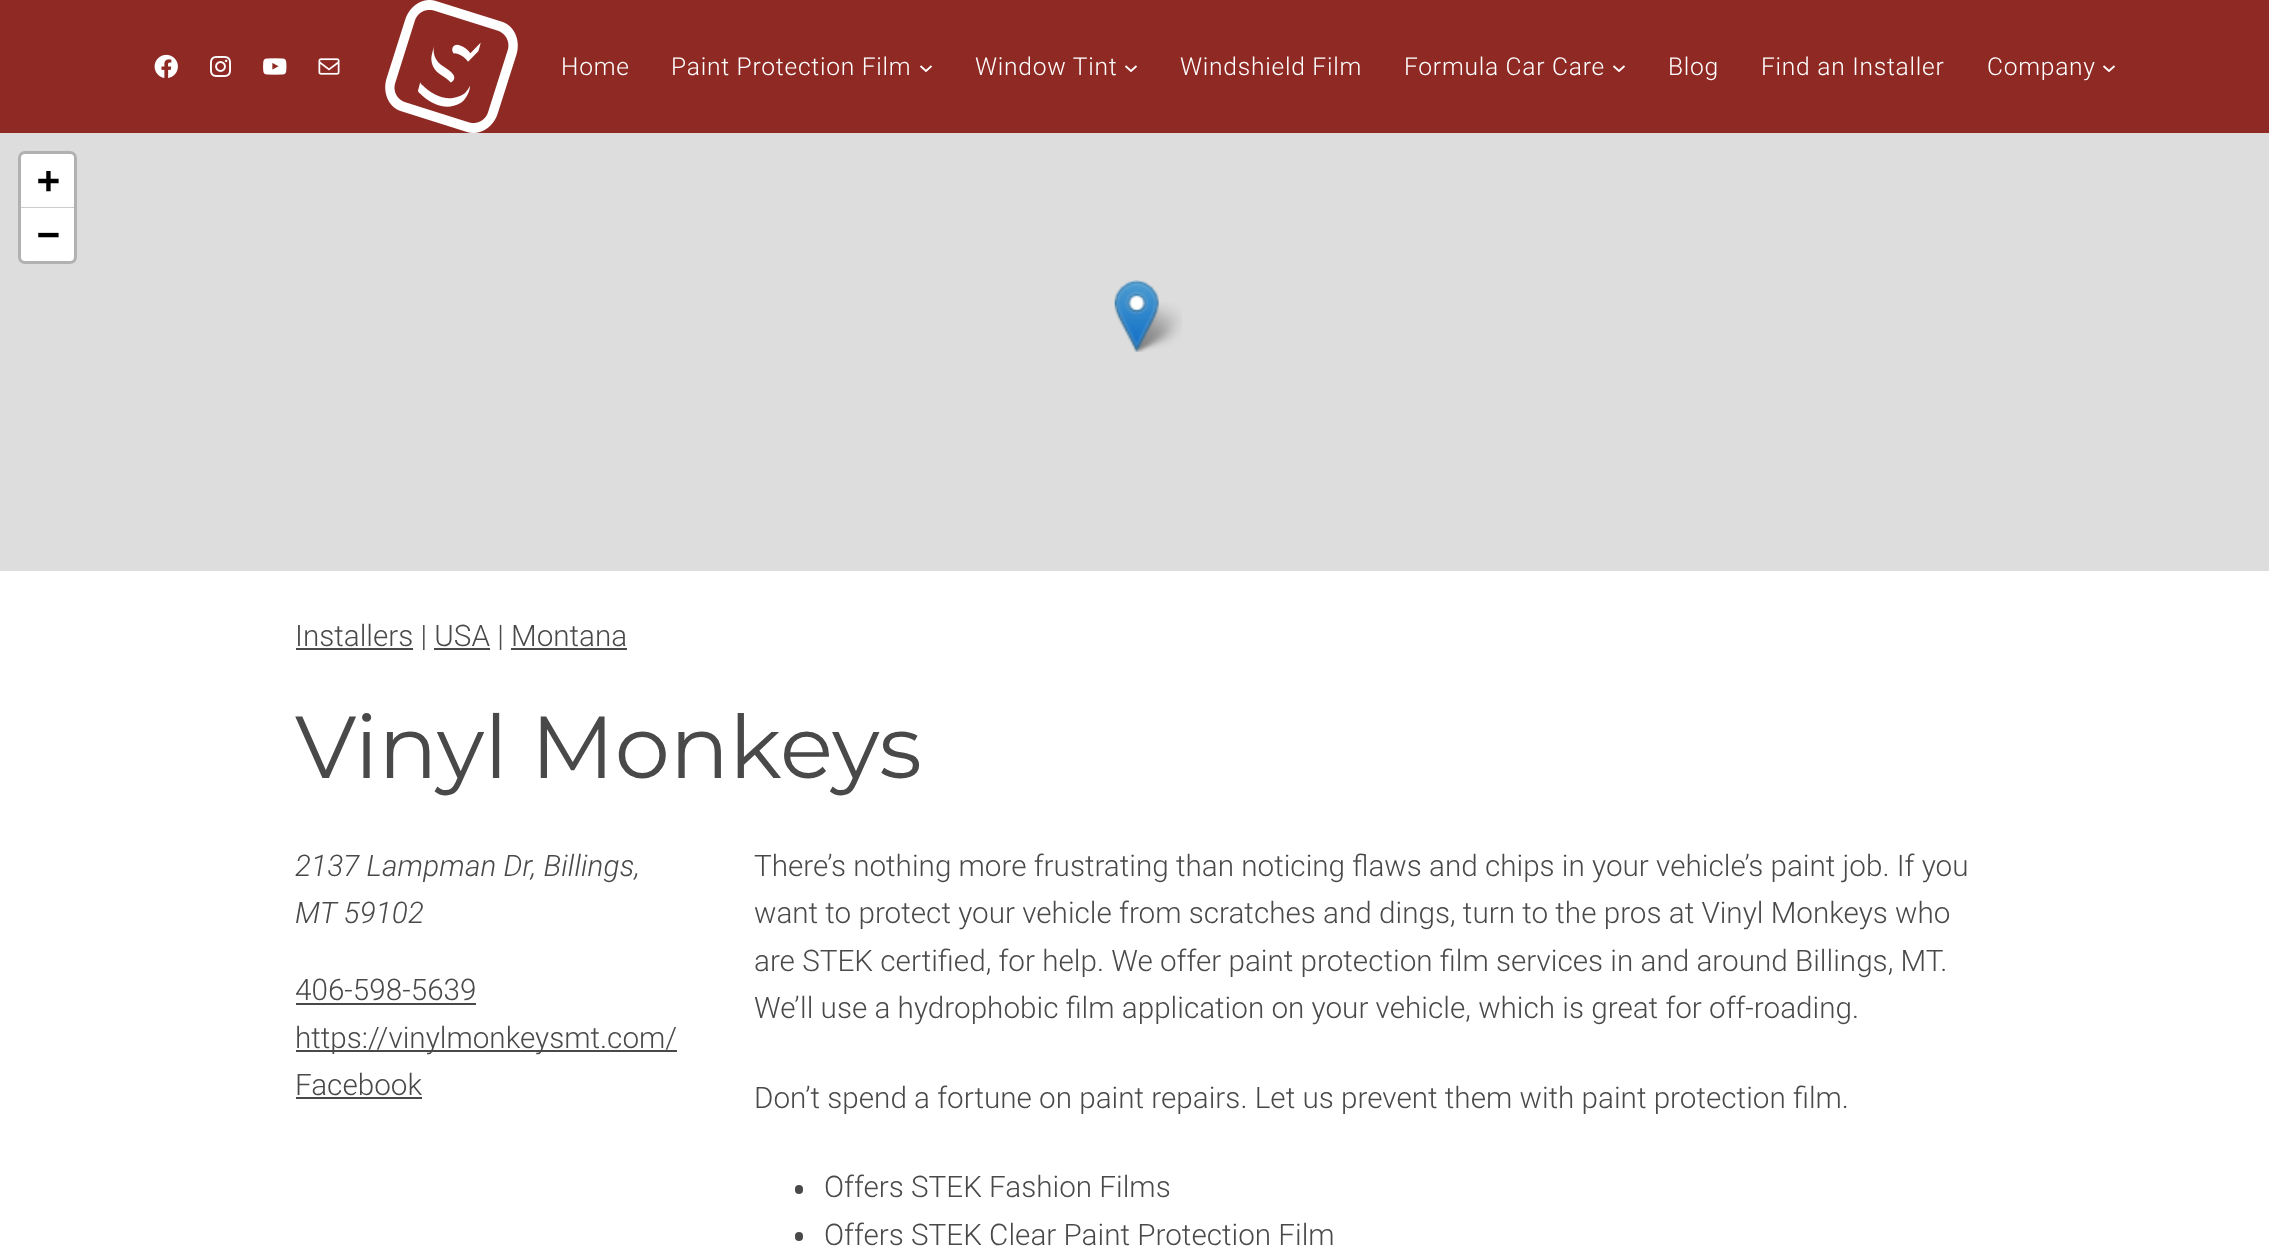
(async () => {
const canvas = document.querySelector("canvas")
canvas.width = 2269
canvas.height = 1247
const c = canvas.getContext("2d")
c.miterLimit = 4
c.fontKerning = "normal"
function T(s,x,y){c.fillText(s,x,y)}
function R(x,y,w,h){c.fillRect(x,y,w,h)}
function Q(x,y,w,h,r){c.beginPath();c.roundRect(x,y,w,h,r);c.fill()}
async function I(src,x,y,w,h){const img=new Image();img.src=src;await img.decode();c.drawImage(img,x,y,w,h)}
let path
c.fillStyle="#fff"
R(0,0,2269,1247)
c.fillStyle="#8e2924"
R(0,0,2269,133)
await I("1.png",154,54,24,24)
await I("2.png",210,56,21,21)
await I("3.png",263,58,24,17)
await I("4.png",318,58,22,17)
await I("5.png",385,0,133,133)
c.letterSpacing="0.75px"
c.font="300 24.6px Roboto"
c.fillStyle="#fff"
T("Home",561,75)
T("Paint Protection Film",671,75)
path = new Path2D("M920.5 66l5.5 5l5.5-5")
c.strokeStyle="#fff"
c.lineWidth=1.8
c.stroke(path)
T("Window Tint",975,75)
path = new Path2D("M1125.5 66l5.5 5l5.5-5")
c.stroke(path)
T("Windshield Film",1180,75)
T("Formula Car Care",1404,75)
path = new Path2D("M1613.5 66l5.5 5l5.5-5")
c.stroke(path)
T("Blog",1668,75)
T("Find an Installer",1761,75)
T("Company",1987,75)
path = new Path2D("M2103.5 66l5.5 5l5.5-5")
c.stroke(path)
c.fillStyle="#ddd"
R(0,133,2269,438)
c.beginPath()
c.roundRect(20,153,55,109,5)
c.strokeStyle="#b1b1b1"
c.lineWidth=4
c.stroke()
c.fillStyle="#fff"
c.beginPath()
c.roundRect(21,154,53,54,[4,4,0,0])
c.fill()
c.fillStyle="#ccc"
R(21,207,53,1)
c.letterSpacing="0px"
c.font="bold 38px DejaVu Sans Mono"
c.fillStyle="#000"
T("+",37,193)
c.fillStyle="#fff"
c.beginPath()
c.roundRect(21,208,53,53,[0,0,4,4])
c.fill()
c.fillStyle="#000"
T("−",37,247)
await I("7.png",1130,302,52,50)
await I("6.png",1114,280,45,72)
c.fillStyle="#4a4949"
R(296,648,117,2)
c.font="300 29.7px Roboto"
T("Installers | USA | Montana",295,646)
R(434,648,56,2)
R(511,648,116,2)
c.font="87.75px Montserrat"
T("Vinyl Monkeys",295,778)
c.font="italic 300 29.7px Roboto"
T("2137 Lampman Dr, Billings,",295,876)
T("MT 59102",295,923)
c.font="300 29.7px Roboto"
T("406-598-5639",295,1000)
R(296,1003,180,2)
R(296,1050,381,2)
T("https://vinylmonkeysmt.com/",295,1048)
T("Facebook",295,1095)
R(296,1097,126,2)
T("There’s nothing more frustrating than noticing flaws and chips in your vehicle’s paint job. If you",754,876)
T("want to protect your vehicle from scratches and dings, turn to the pros at Vinyl Monkeys who",754,923)
T("are STEK certified, for help. We offer paint protection film services in and around Billings, MT.",754,971)
T("We’ll use a hydrophobic film application on your vehicle, which is great for off-roading.",754,1018)
T("Don’t spend a fortune on paint repairs. Let us prevent them with paint protection film.",754,1108)
Q(795,1185,8,9,4)
T("Offers STEK Fashion Films",824,1197)
Q(795,1232,8,9,4)
T("Offers STEK Clear Paint Protection Film",824,1245)
})()
